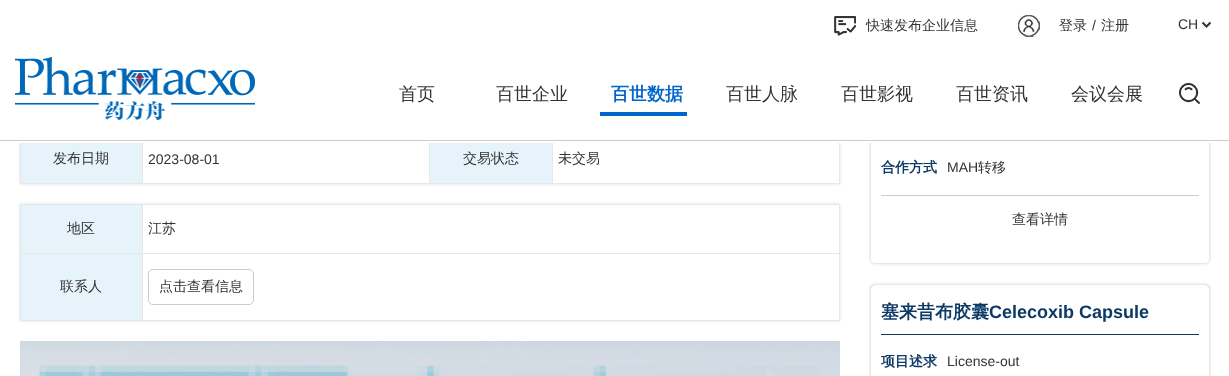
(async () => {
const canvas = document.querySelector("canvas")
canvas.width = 1229
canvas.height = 376
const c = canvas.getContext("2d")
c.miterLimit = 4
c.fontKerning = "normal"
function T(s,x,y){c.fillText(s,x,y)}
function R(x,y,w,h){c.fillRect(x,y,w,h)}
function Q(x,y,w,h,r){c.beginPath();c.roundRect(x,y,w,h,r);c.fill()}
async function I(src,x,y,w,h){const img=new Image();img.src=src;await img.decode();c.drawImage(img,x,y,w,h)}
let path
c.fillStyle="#fff"
R(0,0,1229,376)
c.save()
path = new Path2D("M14 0h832v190h-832zm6-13h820v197h-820z")
c.clip(path,"evenodd")
c.fillStyle="#ddd"
c.filter="blur(1.5px)"
c.beginPath()
c.rect(20,-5,820,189)
c.fill()
c.filter="none"
c.restore()
c.save()
path = new Path2D("M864 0h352v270h-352zm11-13h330c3 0 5 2 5 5v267c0 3-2 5-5 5h-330c-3 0-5-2-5-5v-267c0-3 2-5 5-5z")
c.clip(path,"evenodd")
c.fillStyle="#ddd"
c.filter="blur(1.5px)"
c.beginPath()
c.roundRect(870,-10,340,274,5)
c.fill()
c.filter="none"
c.restore()
c.beginPath()
c.roundRect(870.5,-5.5,339,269,4.5)
c.strokeStyle="#e7e7e7"
c.stroke()
R(18,0,1194,143)
await I("1.png",834,16,22,20)
c.font="500 14px WenQuanYi Zen Hei"
c.fillStyle="#333"
T("快速发布企业信息",866,30)
await I("2.png",1018,15,22,22)
T("登录",1059,30)
c.font="14px Liberation Sans"
T("/",1092,30)
c.font="500 14px WenQuanYi Zen Hei"
T("注册",1101,30)
path = new Path2D("M1202.5 22.5l4 4l4-4")
c.strokeStyle="#333"
c.lineWidth=2
c.stroke(path)
c.font="14px Liberation Sans"
T("CH",1178,29)
c.fillStyle="#ccc"
R(0,140,1229,1)
await I("3.png",15,57,240,63)
c.font="500 18px WenQuanYi Zen Hei"
c.fillStyle="#333"
T("首页",399,100)
T("百世企业",496,100)
c.font="bold 18px WenQuanYi Zen Hei"
c.fillStyle="#06c"
T("百世数据",611,100)
R(600,112,87,4)
c.font="500 18px WenQuanYi Zen Hei"
c.fillStyle="#333"
T("百世人脉",726,100)
T("百世影视",841,100)
T("百世资讯",956,100)
T("会议会展",1071,100)
await I("4.png",1178,82,22,22)
c.fillStyle="#e6f3fb"
R(21,143,121,40)
c.fillStyle="#e7e7e7"
R(839,143,1,41)
R(552,183,288,1)
R(552,143,1,41)
R(429,183,124,1)
R(429,143,1,41)
R(142,183,288,1)
R(142,143,1,41)
R(20,183,123,1)
R(20,143,1,41)
c.font="500 14px WenQuanYi Zen Hei"
c.fillStyle="#333"
T("发布日期",53,163)
c.font="14px Liberation Sans"
T("2023-08-01",148,164)
c.fillStyle="#e6f3fb"
R(430,143,122,40)
c.font="500 14px WenQuanYi Zen Hei"
c.fillStyle="#333"
T("交易状态",463,163)
T("未交易",558,163)
c.save()
path = new Path2D("M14 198h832v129h-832zm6 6h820v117h-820z")
c.clip(path,"evenodd")
c.fillStyle="#ddd"
c.filter="blur(1.5px)"
c.beginPath()
c.rect(20,204,820,117)
c.fill()
c.filter="none"
c.restore()
c.fillStyle="#e6f3fb"
R(21,205,121,48)
c.fillStyle="#e7e7e7"
R(142,204,698,1)
R(142,253,698,1)
R(839,253,1,68)
R(142,320,698,1)
R(142,253,1,68)
R(20,253,123,1)
R(142,204,1,50)
R(20,204,123,1)
R(20,320,123,1)
R(20,253,1,68)
R(20,204,1,50)
c.fillStyle="#333"
T("地区",67,233)
c.fillStyle="#e7e7e7"
R(839,204,1,50)
c.fillStyle="#333"
T("江苏",148,233)
c.fillStyle="#e6f3fb"
R(21,254,121,66)
c.fillStyle="#333"
T("联系人",60,291)
c.beginPath()
c.roundRect(148.5,269.5,105,35,4.5)
c.strokeStyle="#ccc"
c.lineWidth=1
c.stroke()
T("点击查看信息",159,291)
await I("5.png",20,341,820,35)
c.font="bold 14px WenQuanYi Zen Hei"
c.fillStyle="#0d3966"
T("合作方式",881,172)
c.font="14px Liberation Sans"
c.fillStyle="#333"
T("MAH",947,172)
c.font="500 14px WenQuanYi Zen Hei"
T("转移",978,172)
c.fillStyle="#ccc"
R(881,195,318,1)
c.fillStyle="#333"
T("查看详情",1012,224)
c.fillStyle="#ddd"
c.filter="blur(1.5px)"
c.beginPath()
c.roundRect(870,284,340,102,5)
c.fill()
c.filter="none"
c.beginPath()
c.roundRect(870.5,284.5,339,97,4.5)
c.strokeStyle="#e7e7e7"
c.stroke()
c.fillStyle="#fff"
Q(871,285,338,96,5)
c.fillStyle="#0d3966"
R(881,334,318,1)
c.font="bold 18px WenQuanYi Zen Hei"
T("塞来昔布胶囊",881,318)
c.font="bold 18px Liberation Sans"
T("Celecoxib Capsule",989,318)
c.font="bold 14px WenQuanYi Zen Hei"
T("项目述求",881,366)
c.font="14px Liberation Sans"
c.fillStyle="#333"
T("License-out",947,366)
})()
